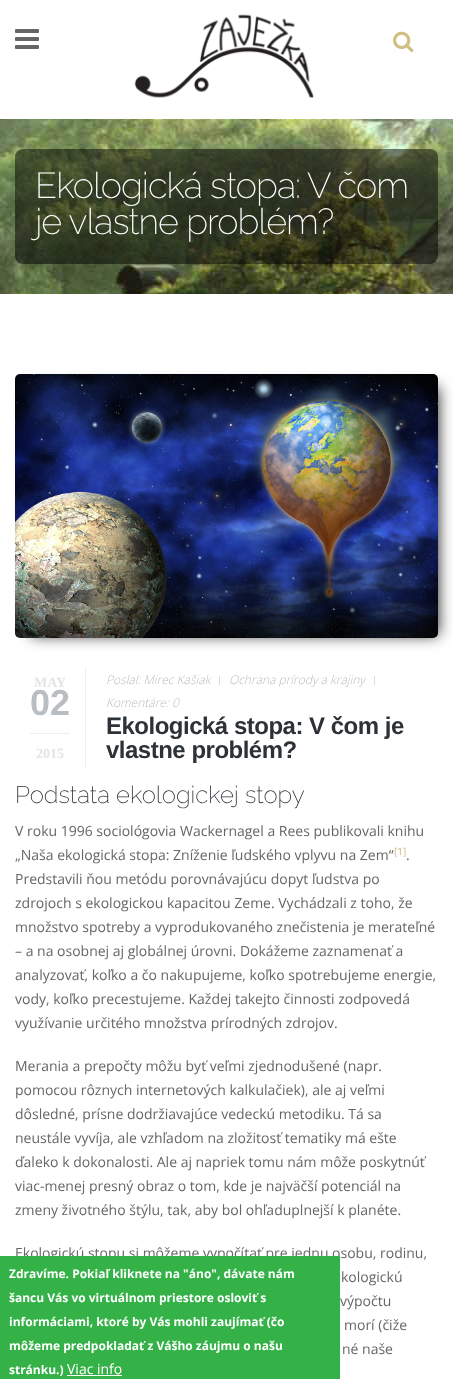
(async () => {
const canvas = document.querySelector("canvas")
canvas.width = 453
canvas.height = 1379
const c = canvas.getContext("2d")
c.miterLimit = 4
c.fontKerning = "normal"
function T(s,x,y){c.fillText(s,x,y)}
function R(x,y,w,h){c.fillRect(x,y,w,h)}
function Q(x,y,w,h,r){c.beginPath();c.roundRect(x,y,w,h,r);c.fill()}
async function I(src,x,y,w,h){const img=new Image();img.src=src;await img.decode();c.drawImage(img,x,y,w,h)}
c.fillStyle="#fff"
R(0,0,453,1379)
await I("1.png",15,29,24,20)
await I("2.png",134,14,180,84)
await I("3.png",393,31,21,22)
await I("4.png",0,119,453,175)
c.fillStyle="#00000080"
Q(15,149,423,115,8)
c.letterSpacing="-1px"
c.font="200 36px Raleway"
c.fillStyle="#fff"
T("Ekologická stopa: V čom",35,198)
T("je vlastne problém?",35,234)
c.fillStyle="#000000e6"
c.filter="blur(7.5px)"
c.beginPath()
c.rect(31,387,407,248)
c.fill()
c.filter="none"
await I("5.png",15,374,423,264)
c.letterSpacing="0px"
c.font="italic 300 12px Open Sans"
c.fillStyle="#b9bec3"
T("Poslal: Mirec Kašiak",106,684)
c.fillStyle="#ddd"
R(219,676,1,9)
c.fillStyle="#b9bec3"
T("Ochrana prírody a krajiny",229,684)
c.fillStyle="#ddd"
R(374,676,1,9)
c.fillStyle="#b9bec3"
T("Komentáre: 0",106,707)
c.letterSpacing="-0.5px"
c.font="bold 24px Liberation Sans"
c.fillStyle="#2d3237"
T("Ekologická stopa: V čom je",106,734)
T("vlastne problém?",106,758)
c.letterSpacing="0px"
c.font="200 24px Raleway"
T("Podstata ekologickej stopy",15,803)
c.font="14px Open Sans"
c.fillStyle="#666"
T("V roku 1996 sociológovia Wackernagel a Rees publikovali knihu",15,836)
T("„Naša ekologická stopa: Zníženie ľudského vplyvu na Zem“",15,860)
c.font="10px Open Sans"
c.fillStyle="#d2be82"
T("[1]",394,855)
c.font="14px Open Sans"
c.fillStyle="#666"
T(".",406,860)
T("Predstavili ňou metódu porovnávajúcu dopyt ľudstva po",15,884)
T("zdrojoch s ekologickou kapacitou Zeme. Vychádzali z toho, že",15,908)
T("množstvo spotreby a vyprodukovaného znečistenia je merateľné",15,932)
T("– a na osobnej aj globálnej úrovni. Dokážeme zaznamenať a",15,956)
T("analyzovať, koľko a čo nakupujeme, koľko spotrebujeme energie,",15,980)
T("vody, koľko precestujeme. Každej takejto činnosti zodpovedá",15,1004)
T("využívanie určitého množstva prírodných zdrojov.",15,1028)
T("Merania a prepočty môžu byť veľmi zjednodušené (napr.",15,1071)
T("pomocou rôznych internetových kalkulačiek), ale aj veľmi",15,1095)
T("dôsledné, prísne dodržiavajúce vedeckú metodiku. Tá sa",15,1119)
T("neustále vyvíja, ale vzhľadom na zložitosť tematiky má ešte",15,1143)
T("ďaleko k dokonalosti. Ale aj napriek tomu nám môže poskytnúť",15,1167)
T("viac-menej presný obraz o tom, kde je najväčší potenciál na",15,1191)
T("zmeny životného štýlu, tak, aby bol ohľaduplnejší k planéte.",15,1215)
T("Ekologickú stopu si môžeme vypočítať pre jednu osobu, rodinu,",15,1258)
T("kologickú",341,1282)
T("výpočtu",340,1306)
T("morí (čiže",344,1330)
T("né naše",342,1354)
c.fillStyle="#eceef0"
R(85,668,1,101)
c.font="bold 14px Liberation Serif"
c.fillStyle="#e2e4e6"
T("MAY",34,687)
c.fillStyle="#eceef0"
R(30,733,40,1)
c.font="bold 36px Liberation Sans"
c.fillStyle="#b9bec3"
T("02",30,715)
c.font="bold 14px Liberation Serif"
c.fillStyle="#e2e4e6"
T("2015",36,758)
c.fillStyle="#34b147"
R(0,1256,340,123)
c.font="bold 12px Open Sans"
c.fillStyle="#fff"
T("Zdravíme. Pokiaľ kliknete na \"áno\", dávate nám",9,1278)
T("šancu Vás vo virtuálnom priestore osloviť s",9,1302)
T("informáciami, ktoré by Vás mohli zaujímať (čo",9,1326)
T("môžeme predpokladať z Vášho záujmu o našu",9,1350)
T("stránku.)",9,1374)
c.font="14px Open Sans"
T("Viac info",67,1374)
R(67,1375,55,1)
})()
